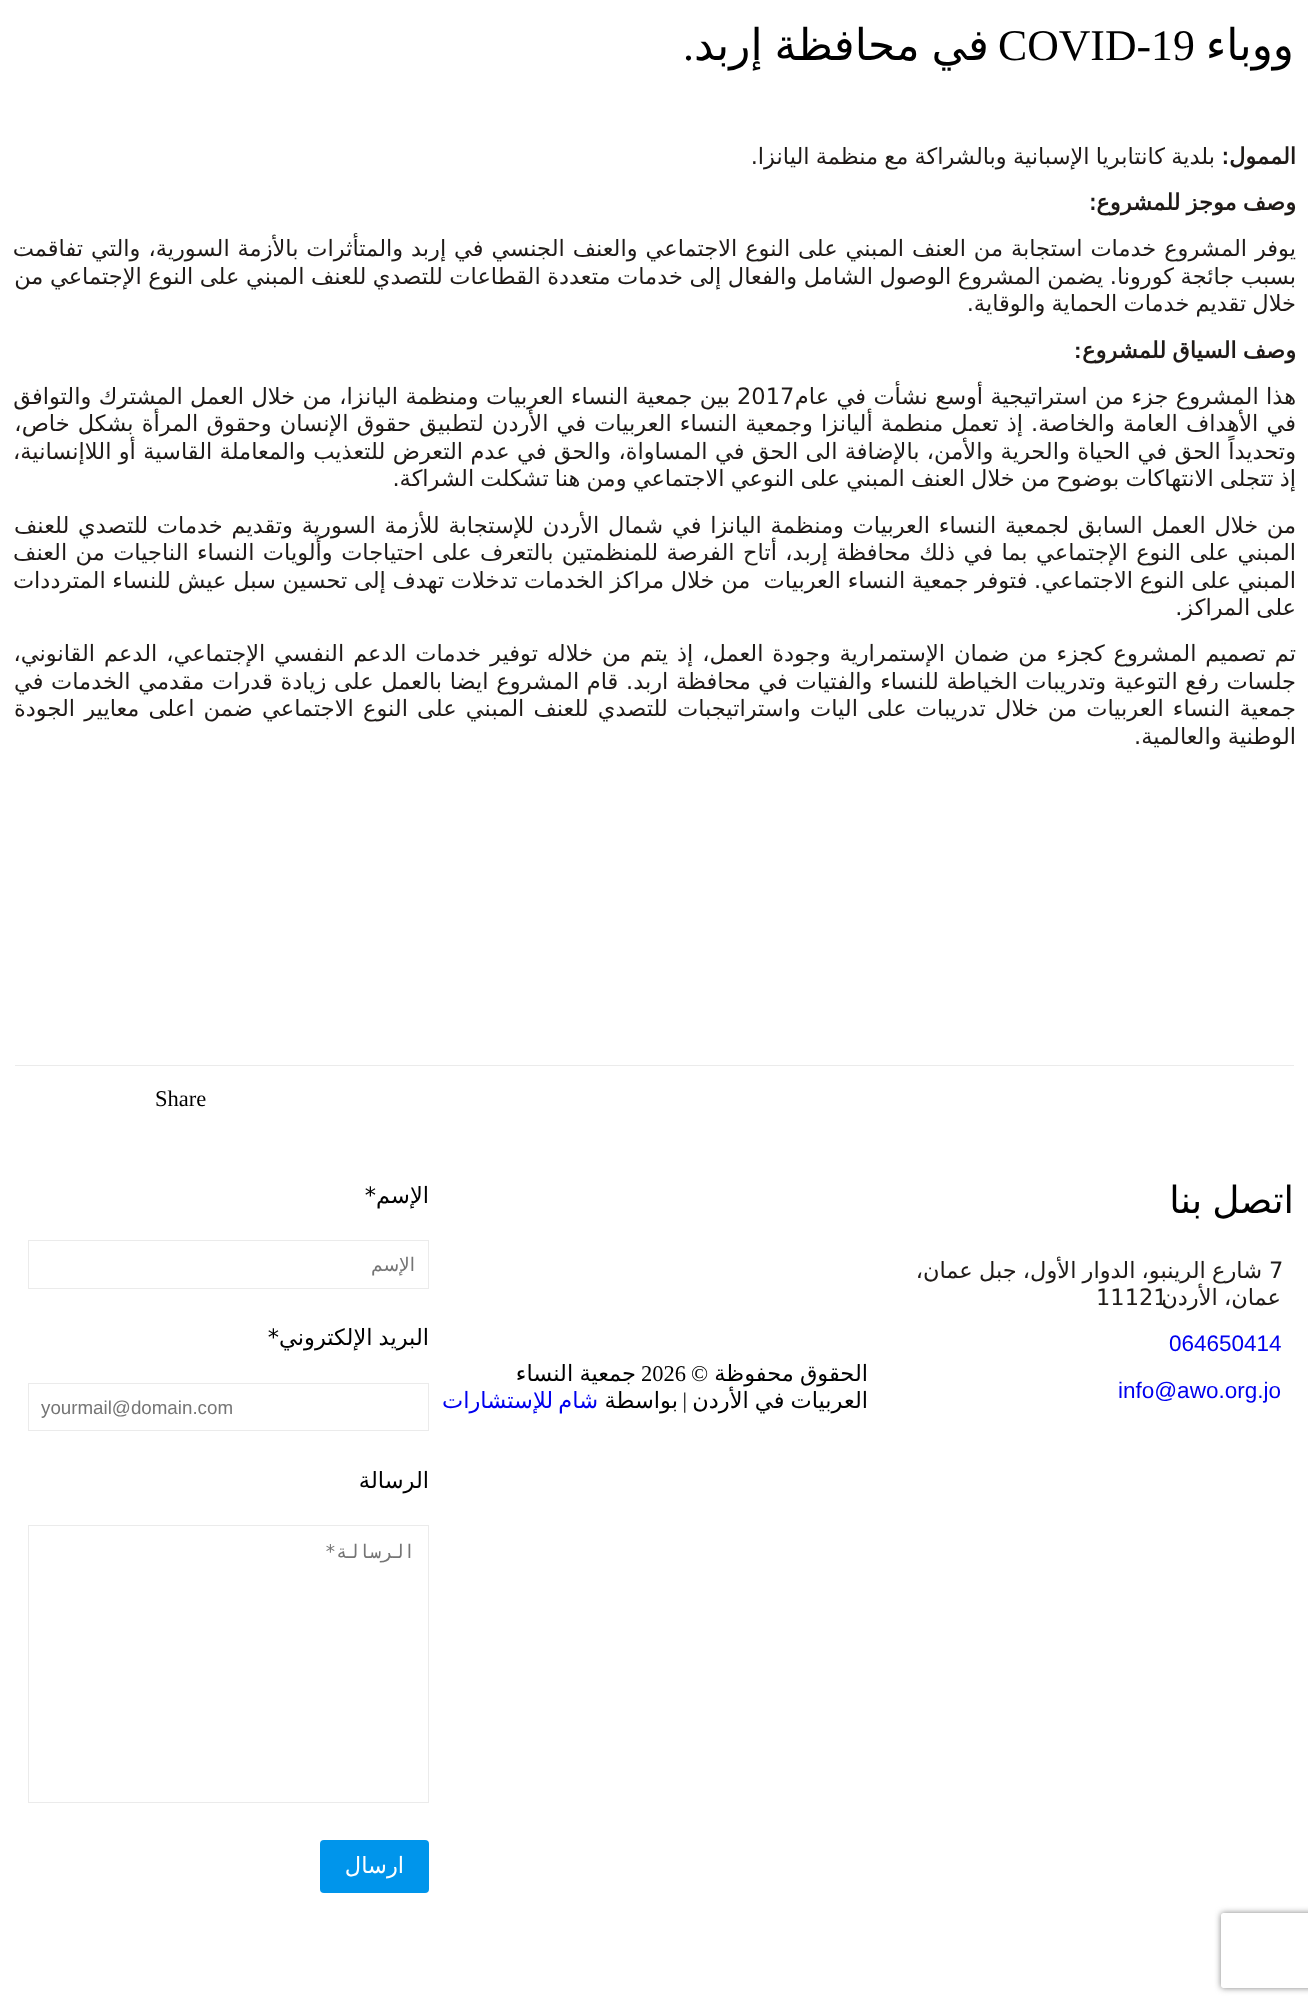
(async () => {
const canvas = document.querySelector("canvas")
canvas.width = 1308
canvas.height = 2004
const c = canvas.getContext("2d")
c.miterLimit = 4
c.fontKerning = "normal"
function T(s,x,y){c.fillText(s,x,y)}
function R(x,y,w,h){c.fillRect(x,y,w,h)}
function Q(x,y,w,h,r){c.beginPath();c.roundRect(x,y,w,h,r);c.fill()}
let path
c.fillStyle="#fff"
R(0,0,1308,2004)
c.direction="rtl"
c.font="43.75px DejaVu Sans"
c.fillStyle="#000"
T("ووباء",1294,60)
c.direction="ltr"
c.font="43.75px Liberation Serif"
T("COVID-19",998,60)
c.wordSpacing="-2px"
c.direction="rtl"
c.font="43.75px DejaVu Sans"
T("في محافظة إربد",989,60)
c.wordSpacing="0px"
c.font="43.75px Liberation Serif"
T(".",694,60)
c.font="bold 22.5px DejaVu Sans"
c.fillStyle="#1f1a17"
T("الممول:",1296,164)
c.wordSpacing="-1px"
c.font="22.5px DejaVu Sans"
T("بلدية كانتابريا الإسبانية وبالشراكة مع منظمة اليانزا.",1215,164)
c.font="bold 22.5px DejaVu Sans"
T("وصف موجز للمشروع:",1296,210)
c.wordSpacing="0.75px"
c.font="22.5px DejaVu Sans"
T("يوفر المشروع خدمات استجابة من العنف المبني على النوع الاجتماعي والعنف الجنسي في إربد والمتأثرات بالأزمة السورية، والتي تفاقمت",1296,256)
c.wordSpacing="-0.6px"
T("بسبب جائجة كورونا. يضمن المشروع الوصول الشامل والفعال إلى خدمات متعددة القطاعات للتصدي للعنف المبني على النوع الإجتماعي من",1296,284)
c.wordSpacing="-1px"
T("خلال تقديم خدمات الحماية والوقاية.",1296,311)
c.font="bold 22.5px DejaVu Sans"
T("وصف السياق للمشروع",1296,358)
c.wordSpacing="0px"
c.direction="ltr"
c.font="bold 22.5px Liberation Sans"
T(":",1074,358)
c.wordSpacing="0.25px"
c.direction="rtl"
c.font="22.5px DejaVu Sans"
T("هذا المشروع جزء من استراتيجية أوسع نشأت في عام",1296,404)
c.wordSpacing="0px"
c.direction="ltr"
T("2017",737,404)
c.wordSpacing="0.25px"
c.direction="rtl"
T("بين جمعية النساء العربيات ومنظمة اليانزا، من خلال العمل المشترك والتوافق",730,404)
c.wordSpacing="1px"
T("في الأهداف العامة والخاصة. إذ تعمل منطمة أليانزا وجمعية النساء العربيات في الأردن لتطبيق حقوق الإنسان وحقوق المرأة بشكل خاص،",1296,431)
c.wordSpacing="0.2px"
T("وتحديداً الحق في الحياة والحرية والأمن، بالإضافة الى الحق في المساواة، والحق في عدم التعرض للتعذيب والمعاملة القاسية أو اللاإنسانية،",1296,459)
c.wordSpacing="-1px"
T("إذ تتجلى الانتهاكات بوضوح من خلال العنف المبني على النوعي الاجتماعي ومن هنا تشكلت الشراكة.",1296,486)
c.wordSpacing="1.6px"
T("من خلال العمل السابق لجمعية النساء العربيات ومنظمة اليانزا في شمال الأردن للإستجابة للأزمة السورية وتقديم خدمات للتصدي للعنف",1296,533)
c.wordSpacing="1.25px"
T("المبني على النوع الإجتماعي بما في ذلك محافظة إربد، أتاح الفرصة للمنظمتين بالتعرف على احتياجات وألويات النساء الناجيات من العنف",1296,560)
c.wordSpacing="-0.5px"
T("المبني على النوع الاجتماعي. فتوفر جمعية النساء العربيات  من خلال مراكز الخدمات تدخلات تهدف إلى تحسين سبل عيش للنساء المترددات",1296,588)
c.wordSpacing="-1px"
T("على المراكز.",1296,615)
c.wordSpacing="1.75px"
T("تم تصميم المشروع كجزء من ضمان الإستمرارية وجودة العمل، إذ يتم من خلاله توفير خدمات الدعم النفسي الإجتماعي، الدعم القانوني،",1296,661)
c.wordSpacing="0.5px"
T("جلسات رفع التوعية وتدريبات الخياطة للنساء والفتيات في محافظة اربد. قام المشروع ايضا بالعمل على زيادة قدرات مقدمي الخدمات في",1296,689)
c.wordSpacing="2px"
T("جمعية النساء العربيات من خلال تدريبات على اليات واستراتيجبات للتصدي للعنف المبني على النوع الاجتماعي ضمن اعلى معايير الجودة",1296,716)
c.wordSpacing="-1px"
T("الوطنية والعالمية.",1296,744)
c.fillStyle="#ebebeb"
R(15,1065,1279,1)
c.wordSpacing="0px"
c.direction="ltr"
c.font="22.5px Liberation Serif"
c.fillStyle="#000"
T("Share",155,1106)
c.wordSpacing="-2px"
c.direction="rtl"
c.font="37.5px DejaVu Sans"
T("اتصل بنا",1294,1213)
c.wordSpacing="0px"
c.direction="ltr"
c.font="22.5px DejaVu Sans"
c.fillStyle="#1f1a17"
T("7",1269,1278)
c.wordSpacing="-1px"
c.direction="rtl"
T("شارع الرينبو، الدوار الأول، جبل عمان،",1262,1278)
c.wordSpacing="0px"
c.direction="ltr"
T("11121",1096,1305)
c.wordSpacing="-1px"
c.direction="rtl"
T("عمان، الأردن",1281,1305)
c.wordSpacing="0px"
c.direction="ltr"
c.font="22.5px Liberation Sans"
c.fillStyle="#00e"
T("064650414",1169,1351)
T("info@awo.org.jo",1118,1398)
c.wordSpacing="-1px"
c.direction="rtl"
c.font="22.5px DejaVu Sans"
c.fillStyle="#000"
T("الحقوق محفوظة",868,1381)
c.wordSpacing="0px"
c.font="22.5px Liberation Serif"
T("©",708,1381)
c.direction="ltr"
T("2026",641,1381)
c.wordSpacing="-1px"
c.direction="rtl"
c.font="22.5px DejaVu Sans"
T("جمعية النساء",636,1381)
T("العربيات في الأردن",868,1408)
c.wordSpacing="0px"
c.font="22.5px Liberation Serif"
T("|",687,1408)
c.font="22.5px DejaVu Sans"
T("بواسطة",678,1408)
c.wordSpacing="-2px"
c.fillStyle="#00e"
T("شام للإستشارات",598,1408)
c.wordSpacing="0px"
c.fillStyle="#000"
T("الإسم*",429,1203)
c.strokeStyle="#ebebeb"
c.strokeRect(28.5,1240.5,400,48)
c.font="18.75px DejaVu Sans"
c.fillStyle="#757575"
T("الإسم",415,1271)
c.wordSpacing="-1px"
c.font="22.5px DejaVu Sans"
c.fillStyle="#000"
T("البريد الإلكتروني*",429,1345)
c.strokeRect(28.5,1383.5,400,47)
c.wordSpacing="0px"
c.direction="ltr"
c.font="18.75px Liberation Sans"
c.fillStyle="#757575"
T("yourmail@domain.com",41,1414)
c.direction="rtl"
c.font="22.5px DejaVu Sans"
c.fillStyle="#000"
T("الرسالة",429,1488)
c.strokeRect(28.5,1525.5,400,277)
c.font="18.75px DejaVu Sans Mono"
c.fillStyle="#757575"
T("الرسالة*",415,1558)
c.fillStyle="#0095eb"
Q(320,1840,109,53,4)
c.font="22.5px DejaVu Sans"
c.fillStyle="#fff"
T("ارسال",404,1873)
c.save()
path = new Path2D("M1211 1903h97v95h-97zm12.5 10h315c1.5 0 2.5 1 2.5 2.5v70c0 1.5-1 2.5-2.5 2.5h-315c-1.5 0-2.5-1-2.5-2.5v-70c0-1.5 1-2.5 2.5-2.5z")
c.clip(path,"evenodd")
c.fillStyle="#808080"
c.filter="blur(3px)"
c.beginPath()
c.roundRect(1221,1913,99,75,2.5)
c.fill()
c.filter="none"
c.restore()
})()
